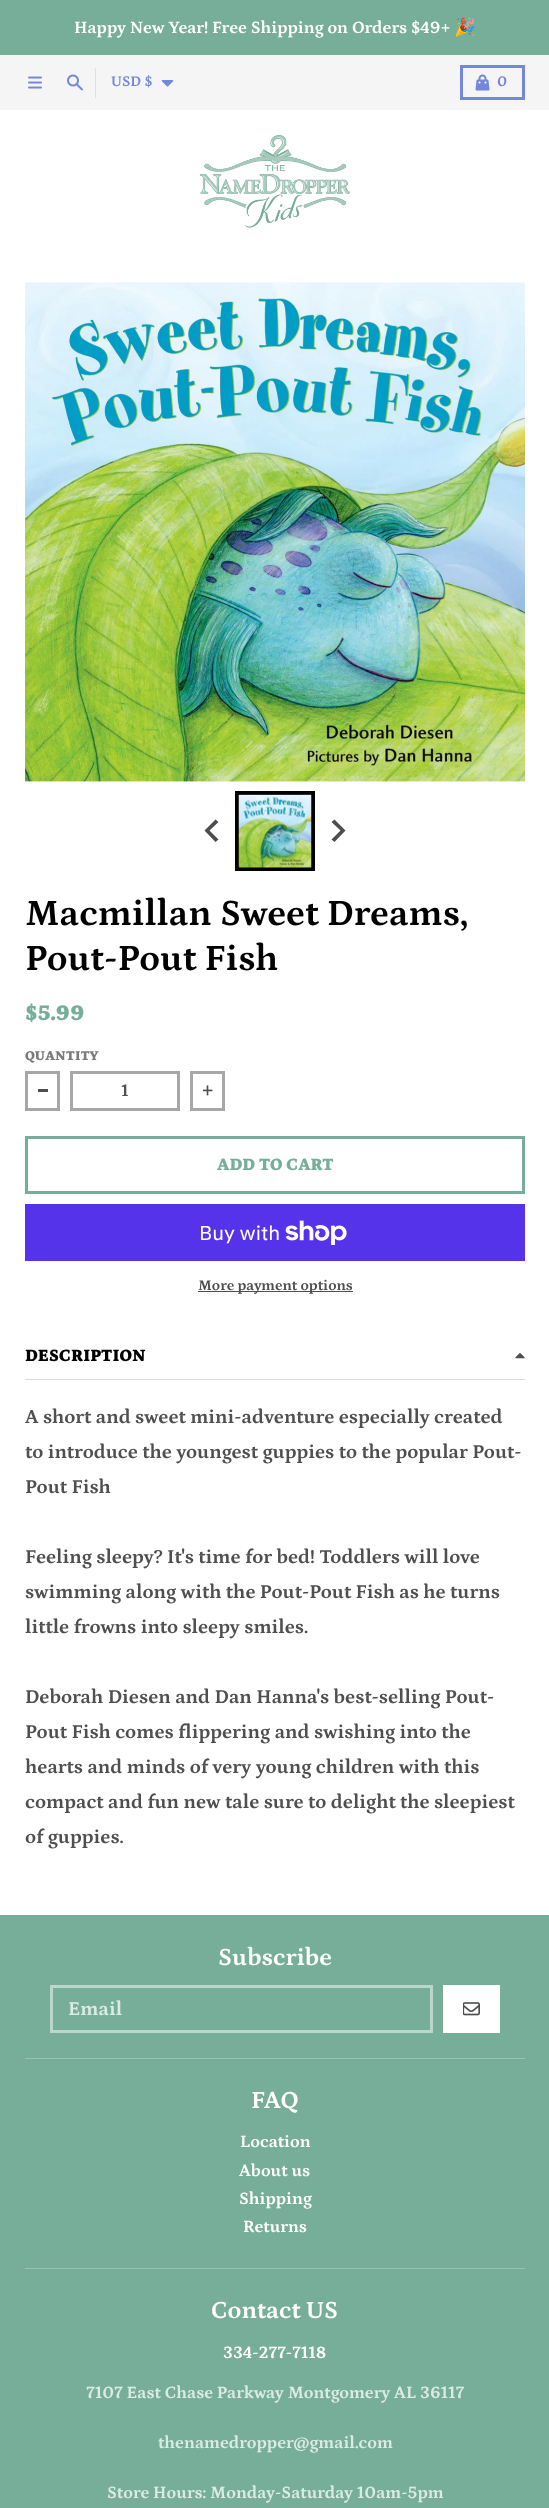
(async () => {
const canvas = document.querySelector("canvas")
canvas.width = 549
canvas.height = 2508
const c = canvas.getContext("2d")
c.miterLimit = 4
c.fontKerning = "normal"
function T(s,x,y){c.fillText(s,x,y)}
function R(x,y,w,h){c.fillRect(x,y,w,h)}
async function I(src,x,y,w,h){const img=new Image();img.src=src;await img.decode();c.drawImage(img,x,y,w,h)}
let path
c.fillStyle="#76ae99"
R(0,0,549,2508)
c.font="bold 17.5px Petrona"
c.fillStyle="#fff"
T("Happy New Year! Free Shipping on Orders $49+",74,33)
c.font="17.5px Noto Color Emoji"
T("🎉",454,33)
c.fillStyle="#f5f5f5"
R(0,55,549,55)
await I("1.png",28,76,14,13)
await I("2.png",67,74,16,17)
c.fillStyle="#dbdff0"
R(95,68,1,30)
c.font="bold 15px Petrona"
c.fillStyle="#7488db"
T("USD $",111,86)
await I("3.png",161,80,13,7)
c.strokeStyle="#7488db"
c.lineWidth=3
c.strokeRect(461.5,66.5,62,32)
await I("4.png",475,74,15,17)
T("0",497,86)
c.fillStyle="#fff"
R(0,110,549,1805)
await I("5.png",200,135,150,93)
await I("6.png",25,282,500,500)
c.strokeStyle="#000"
c.lineWidth=4
c.strokeRect(237,793,76,76)
await I("7.png",238,794,74,74)
c.fillStyle="#4d4d4d"
path = new Path2D("M215.5 819.5l3 2.5l-9 8.5l9 9l-3 2.5l-11-11.5z")
c.fill(path)
path = new Path2D("M334.5 819.5l-3 2.5l9 8.5l-9 9l3 2.5l11-11.5z")
c.fill(path)
c.font="bold 37.5px Petrona"
c.fillStyle="#000"
T("Macmillan Sweet Dreams,",25,925)
T("Pout-Pout Fish",25,970)
c.font="900 22.5px Petrona"
c.fillStyle="#76ae99"
T("$5.99",25,1020)
c.font="900 13.75px Petrona"
c.fillStyle="#7b7b7b"
T("QUANTITY",25,1060)
c.strokeStyle="#a7a7a7"
c.lineWidth=3
c.strokeRect(26.5,1072.5,32,37)
c.fillStyle="#4f4f4f"
R(38,1089,10,3)
c.strokeRect(71.5,1072.5,107,37)
c.font="bold 17.5px Petrona"
T("1",121,1096)
c.strokeRect(191.5,1072.5,32,37)
await I("8.png",203,1085,10,11)
c.strokeStyle="#76ae99"
c.strokeRect(26.5,1137.5,497,55)
c.font="900 17.5px Petrona"
c.fillStyle="#76ae99"
T("ADD TO CART",217,1170)
c.fillStyle="#5433eb"
R(25,1204,500,57)
c.font="20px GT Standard"
c.fillStyle="#fff"
T("Buy with",199,1240)
await I("9.png",285,1220,62,25)
c.fillStyle="#4f4f4f"
R(198,1291,155,1)
c.font="bold 15px Petrona"
T("More payment options",198,1290)
c.fillStyle="#dcdcdc"
R(25,1379,500,1)
c.font="900 17.5px Petrona"
c.fillStyle="#000"
T("DESCRIPTION",25,1361)
await I("10.png",515,1353,10,6)
c.font="bold 20px Petrona"
c.fillStyle="#4f4f4f"
T("A short and sweet mini-adventure especially created",25,1423)
T("to introduce the youngest guppies to the popular Pout-",25,1458)
T("Pout Fish",25,1493)
T("Feeling sleepy? It's time for bed! Toddlers will love",25,1563)
T("swimming along with the Pout-Pout Fish as he turns",25,1598)
T("little frowns into sleepy smiles.",25,1633)
T("Deborah Diesen and Dan Hanna's best-selling Pout-",25,1703)
T("Pout Fish comes flippering and swishing into the",25,1738)
T("hearts and minds of very young children with this",25,1773)
T("compact and fun new tale sure to delight the sleepiest",25,1808)
T("of guppies.",25,1843)
c.font="bold 25px Petrona"
c.fillStyle="#fff"
T("Subscribe",218,1965)
c.strokeStyle="#bbd7cc"
c.strokeRect(51.5,1986.5,380,45)
c.font="bold 20px Petrona"
c.fillStyle="#ddebe6"
T("Email",68,2015)
c.fillStyle="#fff"
R(443,1985,57,48)
await I("11.png",463,2002,17,14)
c.fillStyle="#98c2b3"
R(25,2058,500,1)
c.font="bold 25px Petrona"
c.fillStyle="#fff"
T("FAQ",251,2108)
c.font="bold 17.5px Petrona"
T("Location",240,2147)
T("About us",239,2176)
T("Shipping",239,2204)
T("Returns",243,2232)
c.fillStyle="#98c2b3"
R(25,2268,500,1)
c.font="bold 25px Petrona"
c.fillStyle="#fff"
T("Contact US",211,2318)
c.font="bold 17.5px Petrona"
T("334-277-7118",223,2358)
c.fillStyle="#ddebe6"
T("7107 East Chase Parkway Montgomery AL 36117",86,2398)
T("thenamedropper@gmail.com",158,2448)
T("Store Hours: Monday-Saturday 10am-5pm",107,2498)
})()
